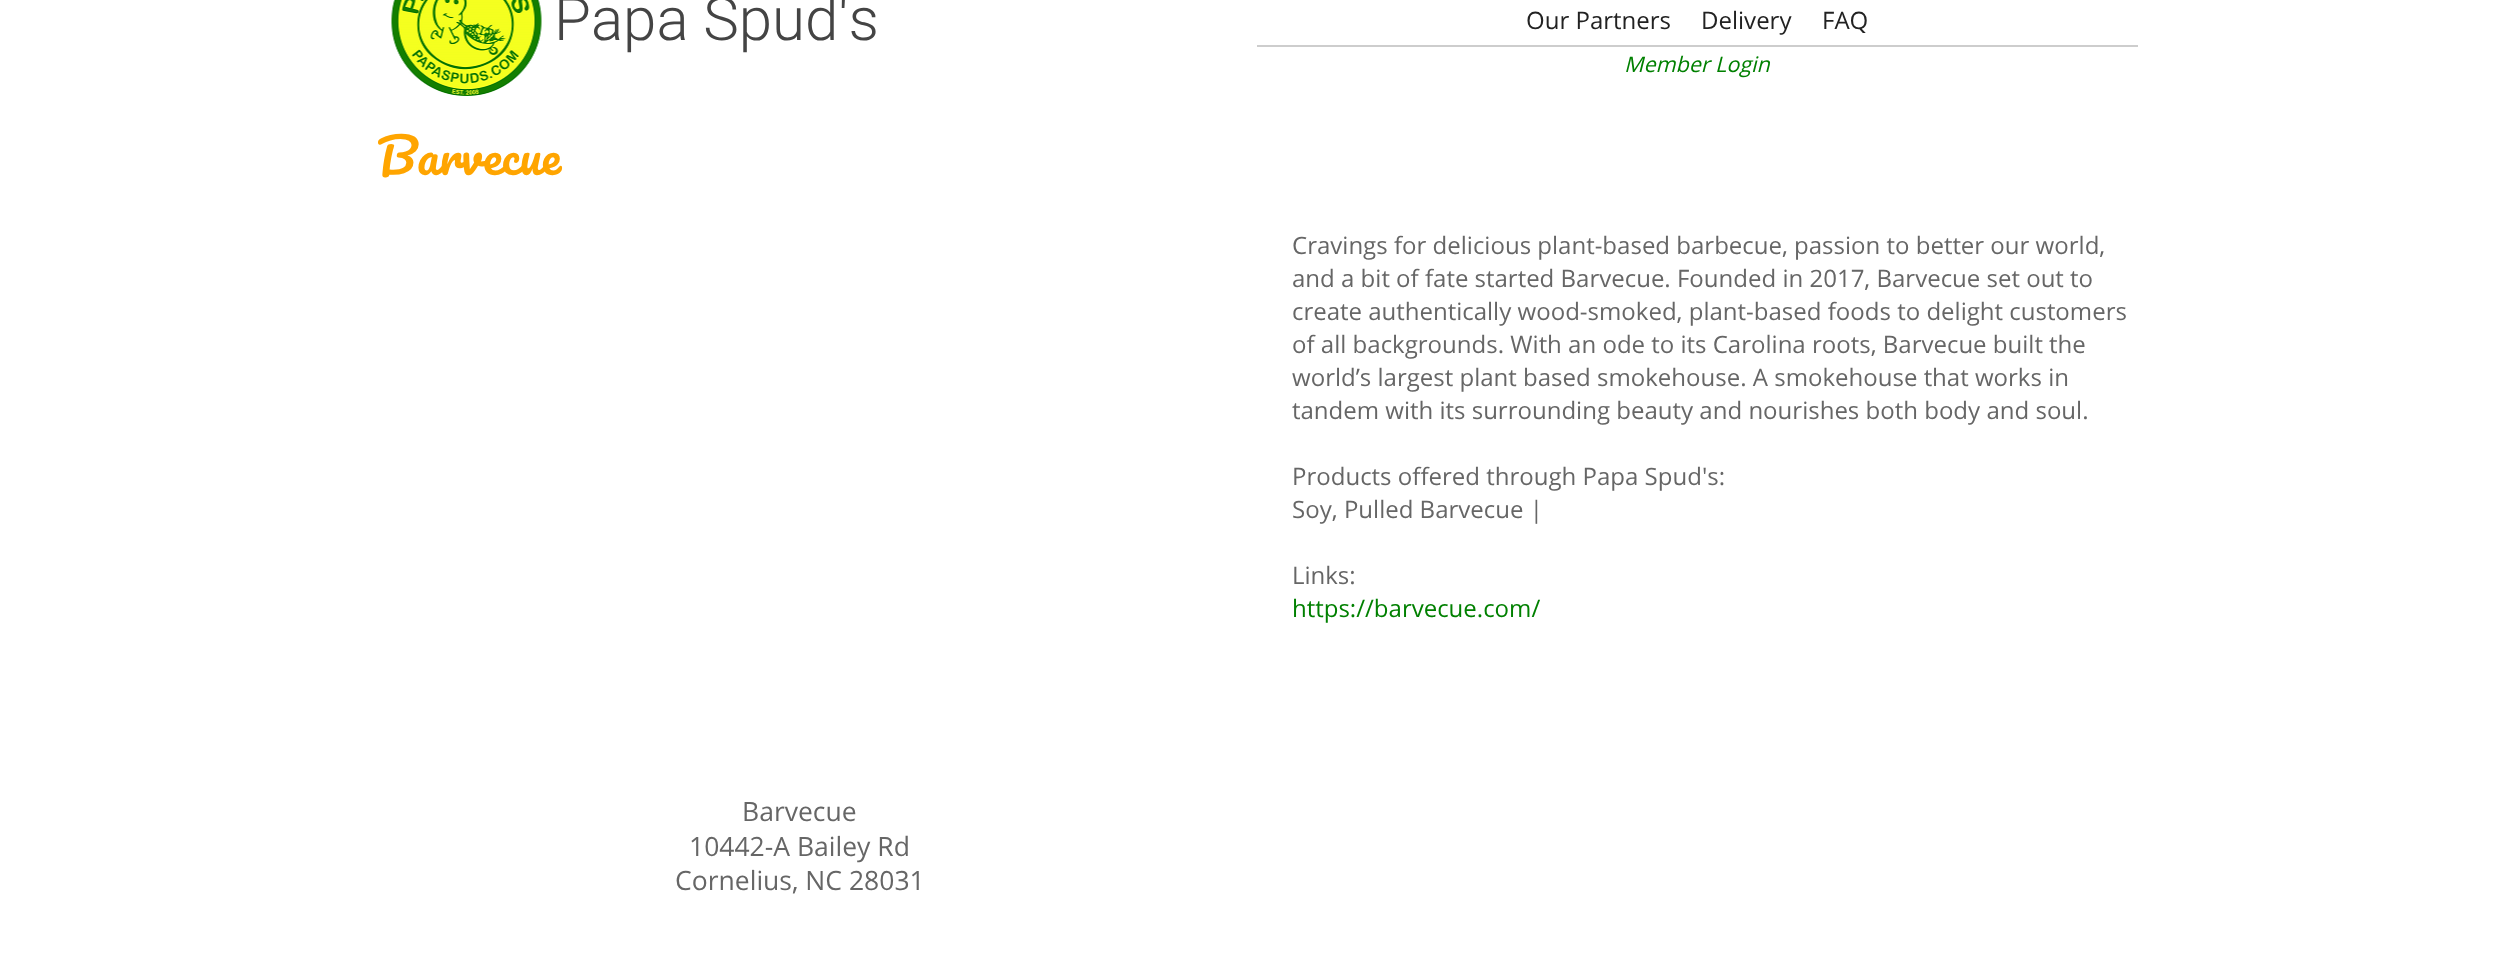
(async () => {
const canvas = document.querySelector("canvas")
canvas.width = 2514
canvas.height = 977
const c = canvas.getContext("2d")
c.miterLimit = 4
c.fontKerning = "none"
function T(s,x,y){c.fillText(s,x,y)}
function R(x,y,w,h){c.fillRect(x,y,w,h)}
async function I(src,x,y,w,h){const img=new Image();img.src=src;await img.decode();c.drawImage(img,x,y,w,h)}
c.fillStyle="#fff"
R(0,0,2514,977)
await I("1.png",391,0,151,96)
c.font="300 60px Roboto"
c.fillStyle="#444"
T("Papa Spud's",554,40)
c.font="24px Open Sans"
c.fillStyle="#222"
T("Our Partners",1526,29)
T("Delivery",1701,29)
T("FAQ",1822,29)
c.fillStyle="#cdcdcd"
R(1257,45,881,2)
c.font="italic 21.5px Open Sans"
c.fillStyle="#008000"
T("Member Login",1624,72)
c.font="48px Pacifico"
c.fillStyle="#ffa500"
T("Barvecue",377,175)
c.font="24px Open Sans"
c.fillStyle="#666"
T("Cravings for delicious plant-based barbecue, passion to better our world,",1292,254)
T("and a bit of fate started Barvecue. Founded in 2017, Barvecue set out to",1292,287)
T("create authentically wood-smoked, plant-based foods to delight customers",1292,320)
T("of all backgrounds. With an ode to its Carolina roots, Barvecue built the",1292,353)
T("world’s largest plant based smokehouse. A smokehouse that works in",1292,386)
T("tandem with its surrounding beauty and nourishes both body and soul.",1292,419)
T("Products offered through Papa Spud's:",1292,485)
T("Soy, Pulled Barvecue |",1292,518)
T("Links:",1292,584)
c.fillStyle="#008000"
T("https://barvecue.com/",1292,617)
c.font="26.5px Open Sans"
c.fillStyle="#666"
T("Barvecue",742,821)
T("10442-A Bailey Rd",689,856)
T("Cornelius, NC 28031",675,890)
})()
